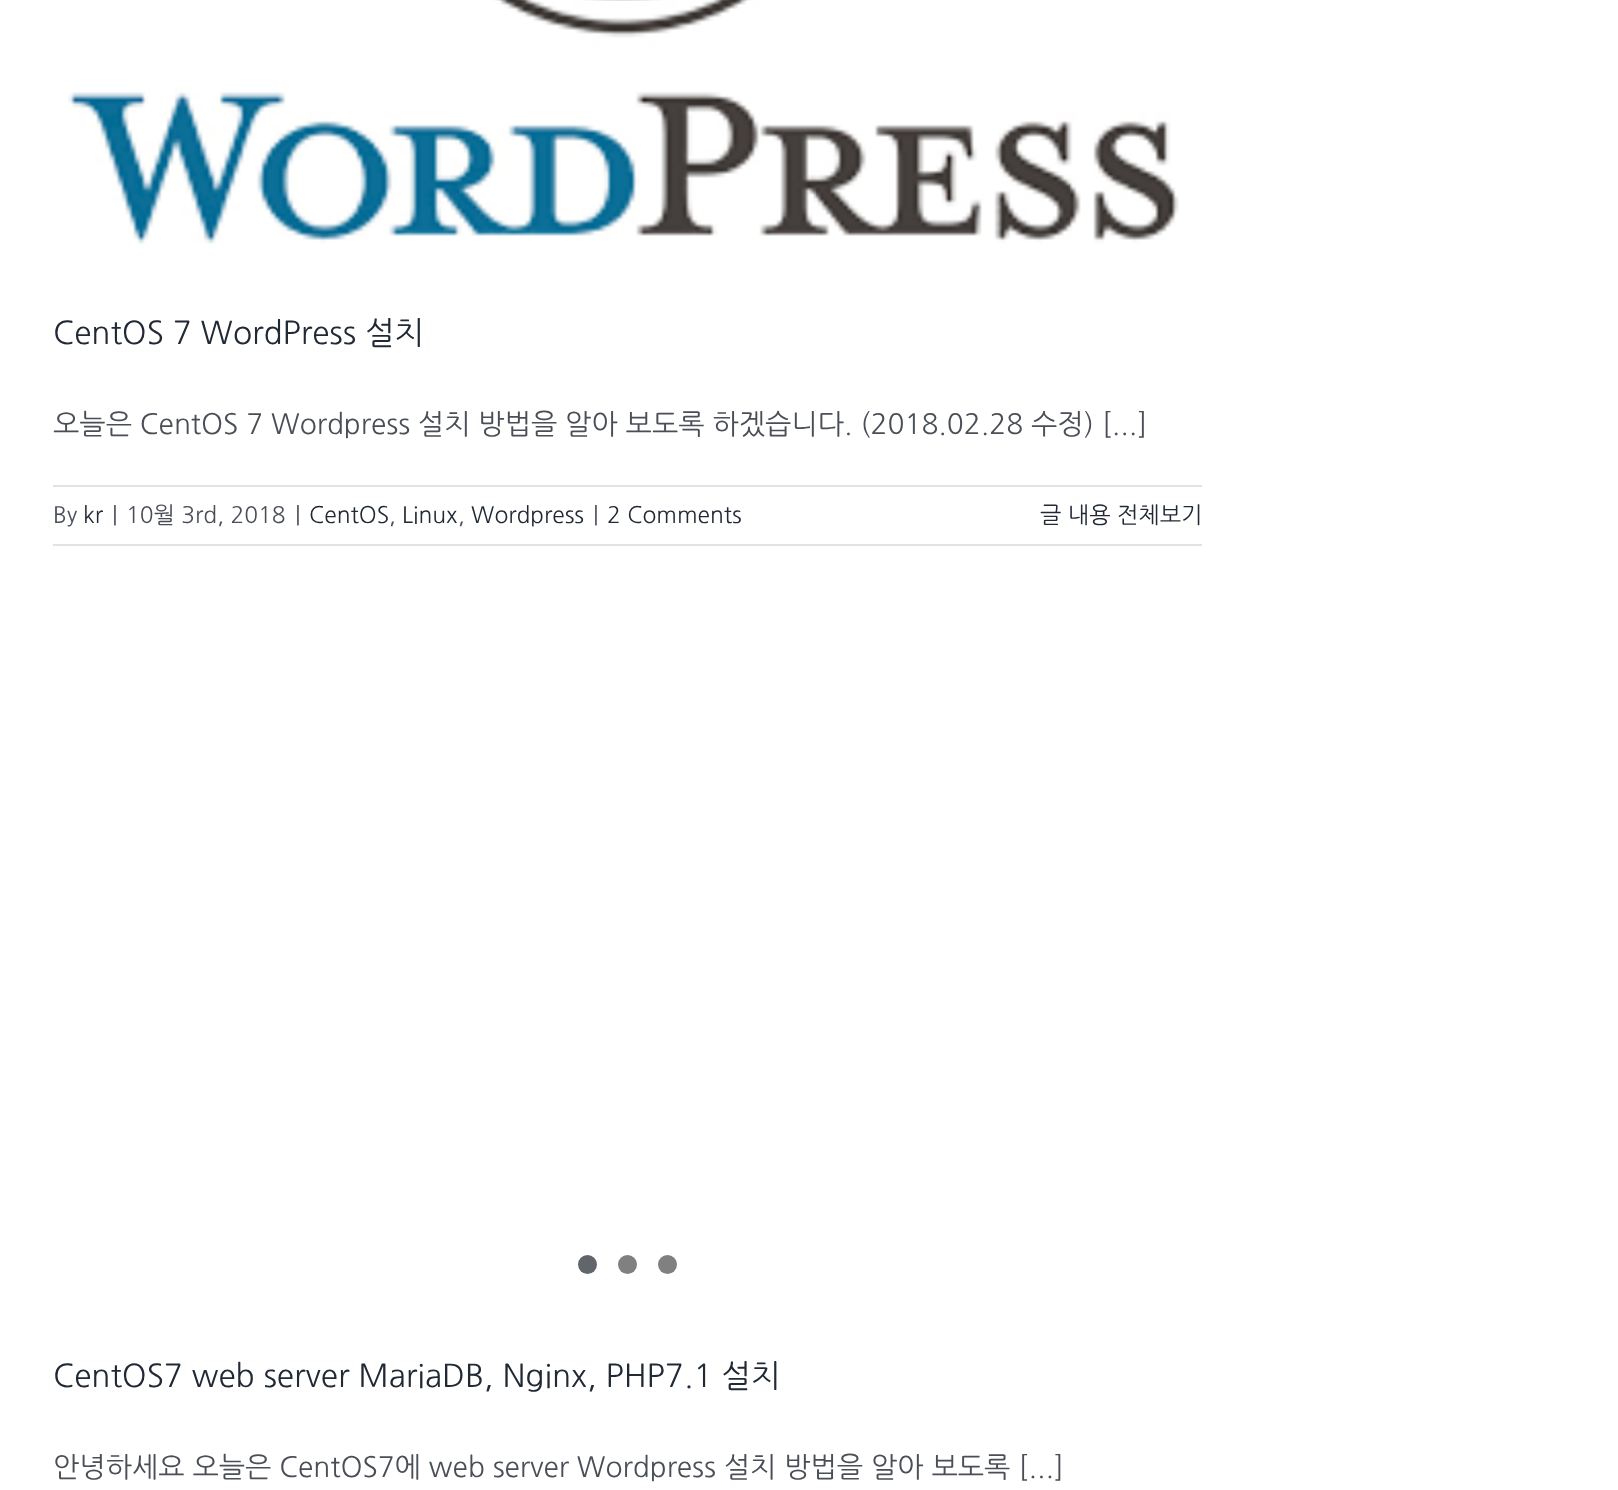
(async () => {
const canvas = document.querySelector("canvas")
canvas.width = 1618
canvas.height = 1490
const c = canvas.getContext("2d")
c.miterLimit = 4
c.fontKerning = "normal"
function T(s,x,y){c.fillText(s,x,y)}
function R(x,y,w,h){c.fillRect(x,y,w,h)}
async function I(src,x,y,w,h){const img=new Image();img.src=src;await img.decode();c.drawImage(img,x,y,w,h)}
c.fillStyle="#fff"
R(0,0,1618,1490)
await I("1.png",68,0,1111,244)
c.font="31.5px NanumGothic"
c.fillStyle="#212934"
T("CentOS 7 WordPress 설치",53,344)
c.font="28px NanumGothic"
c.fillStyle="#4a4e57"
T("오늘은 CentOS 7 Wordpress 설치 방법을 알아 보도록 하겠습니다. (2018.02.28 수정) [...]",53,434)
c.fillStyle="#e2e2e2"
R(53,485,1149,2)
R(53,544,1149,2)
c.font="22.75px NanumGothic"
c.fillStyle="#4a4e57"
T("By",53,523)
c.fillStyle="#212934"
T("kr",83,523)
c.fillStyle="#4a4e57"
T("|",112,523)
T("10월 3rd, 2018",126,523)
T("|",295,523)
c.fillStyle="#212934"
T("CentOS",309,523)
c.fillStyle="#4a4e57"
T(",",389,523)
c.fillStyle="#212934"
T("Linux",402,523)
c.fillStyle="#4a4e57"
T(",",458,523)
c.fillStyle="#212934"
T("Wordpress",471,523)
c.fillStyle="#4a4e57"
T("|",593,523)
c.fillStyle="#212934"
T("2 Comments",607,523)
T("글 내용 전체보기",1040,523)
c.fillStyle="#61666c"
c.beginPath()
c.arc(587.5,1264.5,9.5,0,7)
c.fill()
c.fillStyle="#808080"
c.beginPath()
c.arc(627.5,1264.5,9.5,0,7)
c.fill()
c.beginPath()
c.arc(667.5,1264.5,9.5,0,7)
c.fill()
c.font="31.5px NanumGothic"
c.fillStyle="#212934"
T("CentOS7 web server MariaDB, Nginx, PHP7.1 설치",53,1387)
c.font="28px NanumGothic"
c.fillStyle="#4a4e57"
T("안녕하세요 오늘은 CentOS7에 web server Wordpress 설치 방법을 알아 보도록 [...]",53,1477)
})()
